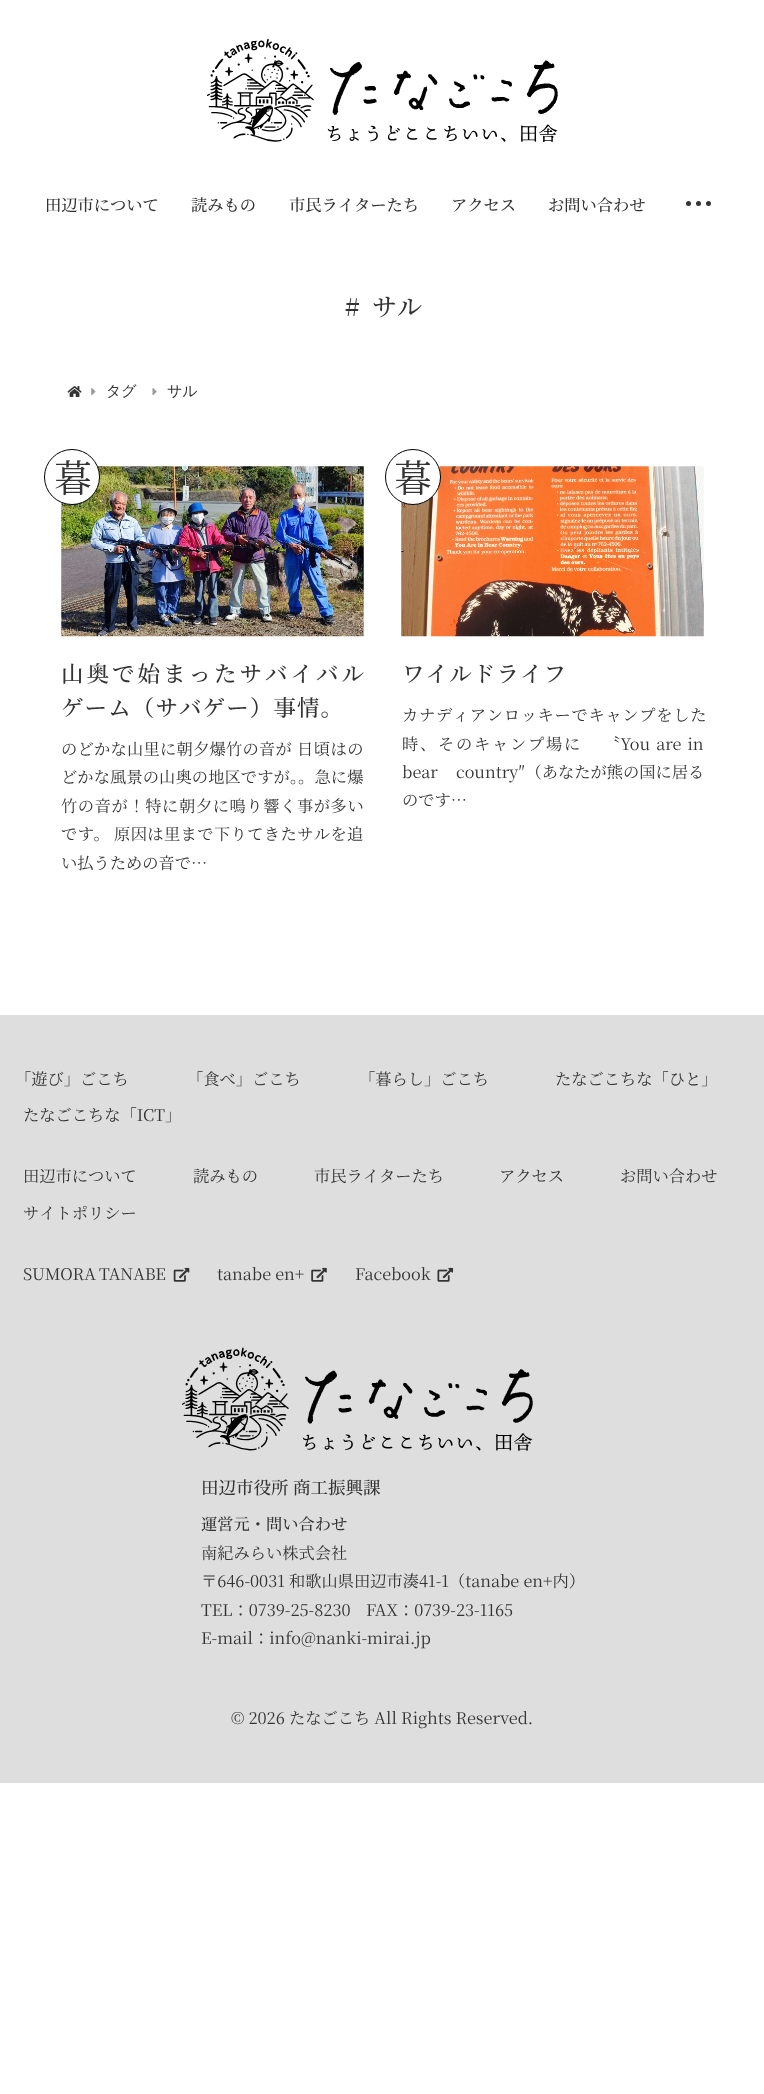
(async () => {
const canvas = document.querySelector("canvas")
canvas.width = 764
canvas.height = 2094
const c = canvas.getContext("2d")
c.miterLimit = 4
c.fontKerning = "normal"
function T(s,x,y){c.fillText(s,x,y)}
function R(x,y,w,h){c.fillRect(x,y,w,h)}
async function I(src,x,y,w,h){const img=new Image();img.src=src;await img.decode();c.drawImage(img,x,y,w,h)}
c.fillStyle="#fff"
R(0,0,764,2094)
await I("1.png",207,38,351,104)
c.font="500 16.25px Noto Serif JP"
c.fillStyle="#333"
T("田辺市について",45,211)
T("読みもの",191,211)
T("市民ライターたち",289,211)
T("アクセス",451,211)
T("お問い合わせ",548,211)
c.beginPath()
c.arc(688.5,203.5,2.5,0,7)
c.fill()
c.beginPath()
c.arc(698.5,203.5,2.5,0,7)
c.fill()
c.beginPath()
c.arc(708.5,203.5,2.5,0,7)
c.fill()
c.font="500 25px Noto Serif JP"
T("#",345,316)
T("サル",372,316)
await I("2.png",67,386,15,11)
await I("3.png",91,388,5,8)
c.font="500 15px WenQuanYi Zen Hei"
T("タグ",106,396)
await I("4.png",152,388,5,8)
T("サル",167,396)
await I("5.png",61,466,303,171)
c.fillStyle="#fff"
c.beginPath()
c.arc(72,477,27.5,0,7)
c.fill()
c.strokeStyle="#000"
c.stroke()
c.font="38px Noto Serif JP"
c.fillStyle="#333"
T("暮",54,492)
c.letterSpacing="3px"
c.font="500 22.5px Noto Serif JP"
T("山奥で始まったサバイバル",61,682)
c.letterSpacing="1.1px"
T("ゲーム（サバゲー）事情。",61,716)
c.letterSpacing="0.25px"
c.font="16.25px Noto Serif JP"
T("のどかな山里に朝夕爆竹の音が",61,755)
c.letterSpacing="0.5px"
T("日頃はの",297,755)
c.letterSpacing="0.1px"
T("どかな風景の山奥の地区ですが。。急に爆",61,783)
c.letterSpacing="0.6px"
T("竹の音が！特に朝夕に鳴り響く事が多い",61,812)
T("です。",61,840)
c.letterSpacing="0.4px"
T("原因は里まで下りてきたサルを追",114,840)
c.letterSpacing="0px"
T("い払うための音で…",61,869)
await I("6.png",401,466,303,171)
c.fillStyle="#fff"
c.beginPath()
c.arc(413,477,27.5,0,7)
c.fill()
c.stroke()
c.font="38px Noto Serif JP"
c.fillStyle="#333"
T("暮",394,492)
c.letterSpacing="1.1px"
c.font="500 22.5px Noto Serif JP"
T("ワイルドライフ",402,682)
c.letterSpacing="0.7px"
c.font="16.25px Noto Serif JP"
T("カナディアンロッキーでキャンプをした",402,721)
c.letterSpacing="1.75px"
T("時、そのキャンプ場に",402,750)
c.letterSpacing="0px"
c.wordSpacing="2px"
T("〝You are in",604,750)
c.wordSpacing="14px"
T("bear country″（あなたが熊の国に居る",402,778)
c.wordSpacing="0px"
T("のです…",402,806)
c.fillStyle="#dedede"
R(0,1015,764,768)
c.fillStyle="#333"
T("「遊び」ごこち",15,1085)
T("「食べ」ごこち",187,1085)
T("「暮らし」ごこち",359,1085)
T("たなごこちな「ひと」",555,1085)
T("たなごこちな「ICT」",23,1121)
T("田辺市について",23,1182)
T("読みもの",193,1182)
T("市民ライターたち",314,1182)
T("アクセス",499,1182)
T("お問い合わせ",620,1182)
T("サイトポリシー",23,1219)
c.wordSpacing="-1px"
T("SUMORA TANABE",23,1280)
await I("7.png",173,1267,17,15)
c.wordSpacing="0px"
T("tanabe en+",217,1280)
await I("8.png",311,1267,16,15)
T("Facebook",355,1280)
await I("9.png",437,1267,17,15)
await I("10.png",182,1347,351,104)
c.font="500 17.5px Noto Serif JP"
T("田辺市役所 商工振興課",201,1494)
c.font="500 16.25px Noto Serif JP"
T("運営元・問い合わせ",201,1530)
c.font="16.25px Noto Serif JP"
T("南紀みらい株式会社",201,1559)
T("〒646-0031 和歌山県田辺市湊41-1（tanabe en+内）",201,1587)
T("TEL：0739-25-8230",201,1616)
T("FAX：0739-23-1165",366,1616)
T("E-mail：info@nanki-mirai.jp",201,1644)
T("© 2026 たなごこち All Rights Reserved.",231,1724)
})()
